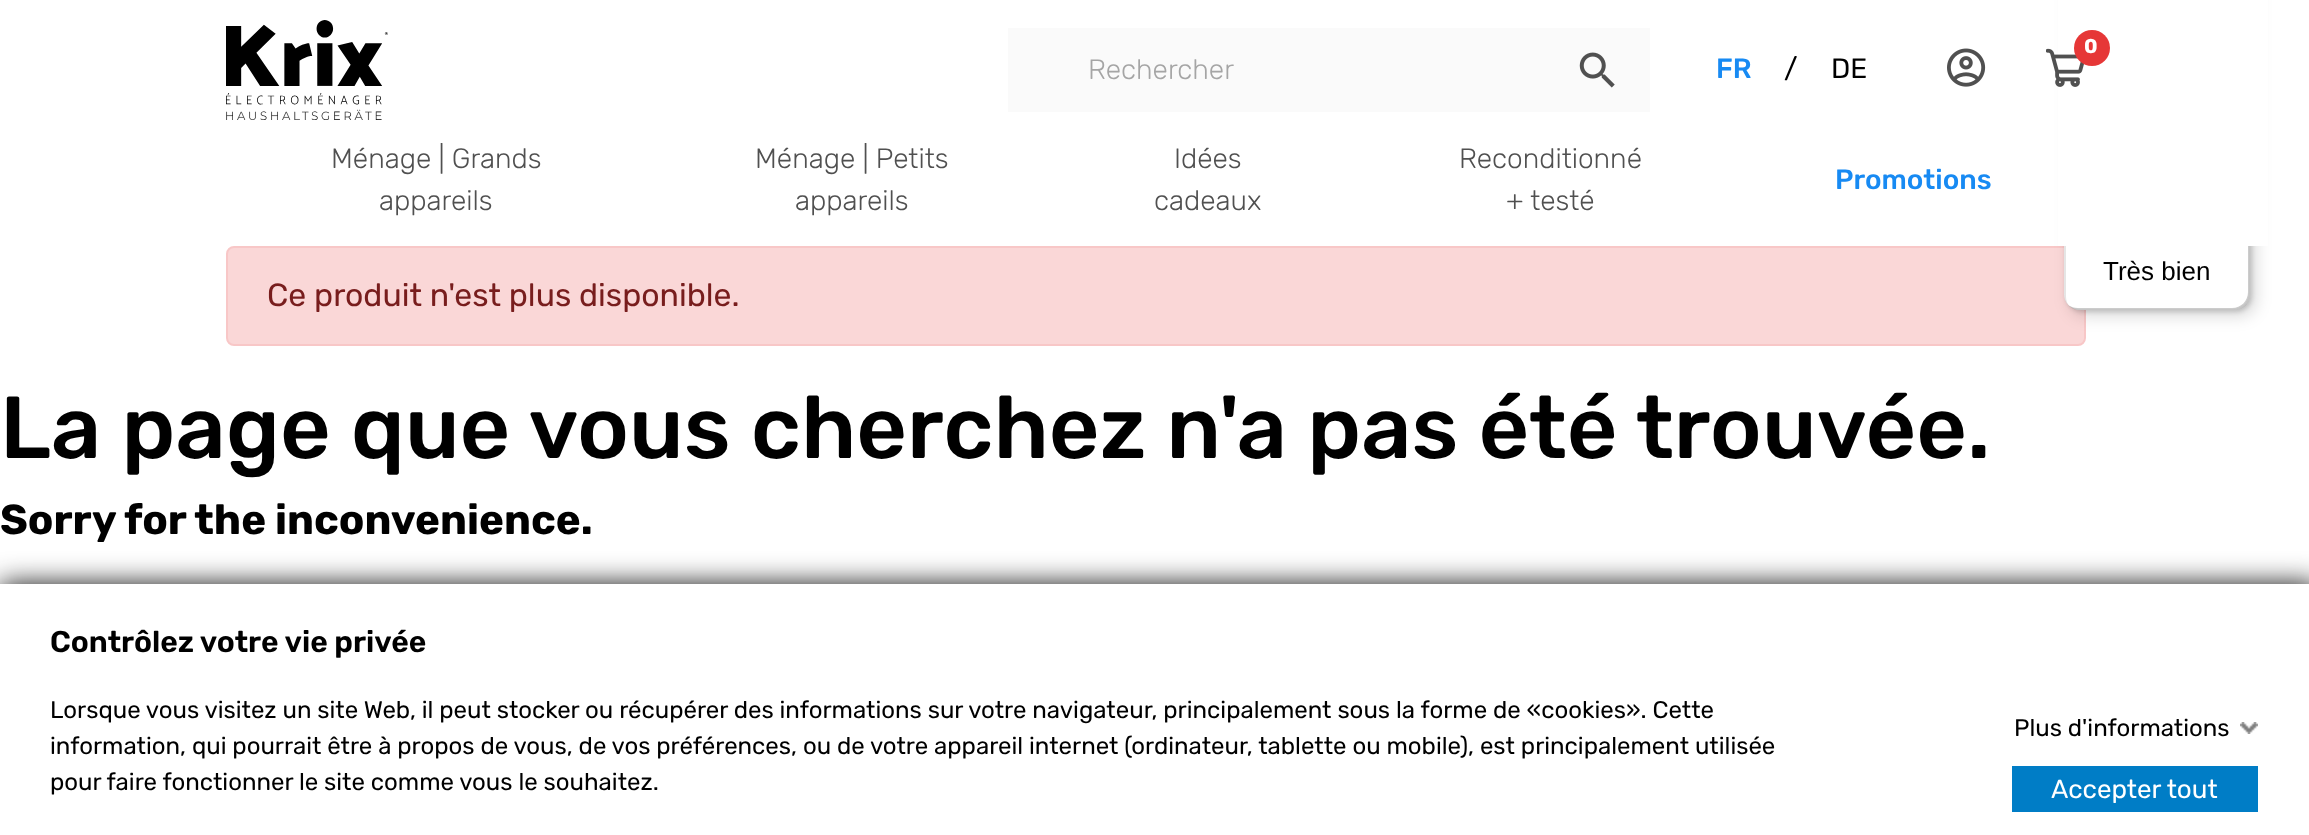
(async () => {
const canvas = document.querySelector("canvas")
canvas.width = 2309
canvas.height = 835
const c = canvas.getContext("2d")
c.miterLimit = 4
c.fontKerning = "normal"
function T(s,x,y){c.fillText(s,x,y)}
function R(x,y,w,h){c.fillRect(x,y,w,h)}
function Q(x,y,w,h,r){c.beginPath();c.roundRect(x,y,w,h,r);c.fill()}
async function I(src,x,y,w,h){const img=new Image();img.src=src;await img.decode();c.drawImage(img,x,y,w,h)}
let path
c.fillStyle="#fff"
R(0,0,2309,835)
c.fillStyle="#fad7d7"
c.beginPath()
c.roundRect(227,247,1858,98,7)
c.fill()
c.strokeStyle="#f8c7c7"
c.lineWidth=2
c.stroke()
c.fillStyle="#00000026"
c.filter="blur(8px)"
c.beginPath()
c.roundRect(2070,-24,186,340,16)
c.fill()
c.filter="none"
c.filter="blur(2px)"
c.beginPath()
c.roundRect(2066,-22,186,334,16)
c.fill()
c.filter="none"
c.fillStyle="#fff"
Q(2064,-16,186,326,16)
c.fillStyle="#0000001a"
path = new Path2D("M2082-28h154c4 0 7 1 10 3c-3-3-7-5-12-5h-154c-9 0-16 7-16 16v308c0 5 2 9 5 12c-2-3-3-6-3-10v-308c0-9 7-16 16-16z")
c.fill(path)
c.fillStyle="#00000033"
path = new Path2D("M2068 305c3 3 7 5 12 5h154c9 0 16-7 16-16v-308c0-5-2-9-5-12c2 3 3 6 3 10v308c0 9-7 16-16 16h-154c-4 0-7-1-10-3z")
c.fill(path)
c.fillStyle="#32323233"
path = new Path2D("M2069 305c3 3 7 5 11 5h154c9 0 16-7 16-16v-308c0-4-2-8-5-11c3 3 4 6 4 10v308c0 9-7 16-16 16h-154c-4 0-7-1-10-4z")
c.fill(path)
c.fillStyle="#ffffff4d"
path = new Path2D("M2069 305c3 3 7 5 11 5h154c9 0 16-7 16-16v-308c0-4-2-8-5-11c3 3 4 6 4 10v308c0 9-7 16-16 16h-154c-4 0-7-1-10-4z")
c.fill(path)
c.fillStyle="#fff"
R(2058,0,210,246)
await I("1.png",226,20,162,100)
c.fillStyle="#fafafa"
R(1008,28,642,84)
c.font="300 28px Rubik"
c.fillStyle="#a5a5a5"
T("Rechercher",1088,79)
await I("2.png",1579,52,36,36)
await I("3.png",2046,48,38,39)
c.fillStyle="#e63737"
c.beginPath()
c.arc(2092,48,18,0,7)
c.fill()
c.font="bold 20px Rubik"
c.fillStyle="#fff"
T("0",2084,53)
c.font="500 28px Rubik"
c.fillStyle="#178af3"
T("FR",1716,78)
c.font="28px Rubik"
c.fillStyle="#000"
T("/",1784,78)
T("DE",1831,78)
await I("4.png",1947,48,39,39)
c.font="300 28px Rubik"
c.fillStyle="#505050"
T("Ménage | Grands",331,168)
T("appareils",379,210)
T("Ménage | Petits",755,168)
T("appareils",795,210)
T("Idées",1174,168)
T("cadeaux",1154,210)
T("Reconditionné",1459,168)
T("+ testé",1506,210)
c.font="500 28px Rubik"
c.fillStyle="#178af3"
T("Promotions",1835,189)
c.font="32px Rubik"
c.fillStyle="#781d1d"
T("Ce produit n'est plus disponible.",267,306)
c.font="500 88px Rubik"
c.fillStyle="#000"
T("La page que vous cherchez n'a pas été trouvée.",0,458)
c.font="bold 42px Rubik"
T("Sorry for the inconvenience.",0,534)
c.font="26px Liberation Sans"
T("Très bien",2103,280)
c.fillStyle="#121212"
c.filter="blur(14px)"
c.beginPath()
c.rect(0,584,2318,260)
c.fill()
c.filter="none"
c.fillStyle="#fff"
R(0,584,2309,251)
c.font="600 30px Rubik"
c.fillStyle="#000"
T("Contrôlez votre vie privée",50,652)
c.font="24px Rubik"
T("Lorsque vous visitez un site Web, il peut stocker ou récupérer des informations sur votre navigateur, principalement sous la forme de «cookies». Cette",50,718)
T("information, qui pourrait être à propos de vous, de vos préférences, ou de votre appareil internet (ordinateur, tablette ou mobile), est principalement utilisée",50,754)
T("pour faire fonctionner le site comme vous le souhaitez.",50,790)
T("Plus d'informations",2014,736)
await I("5.png",2240,722,18,12)
c.fillStyle="#007dc6"
R(2012,766,246,46)
c.font="26px Rubik"
c.fillStyle="#fff"
T("Accepter tout",2051,798)
})()
